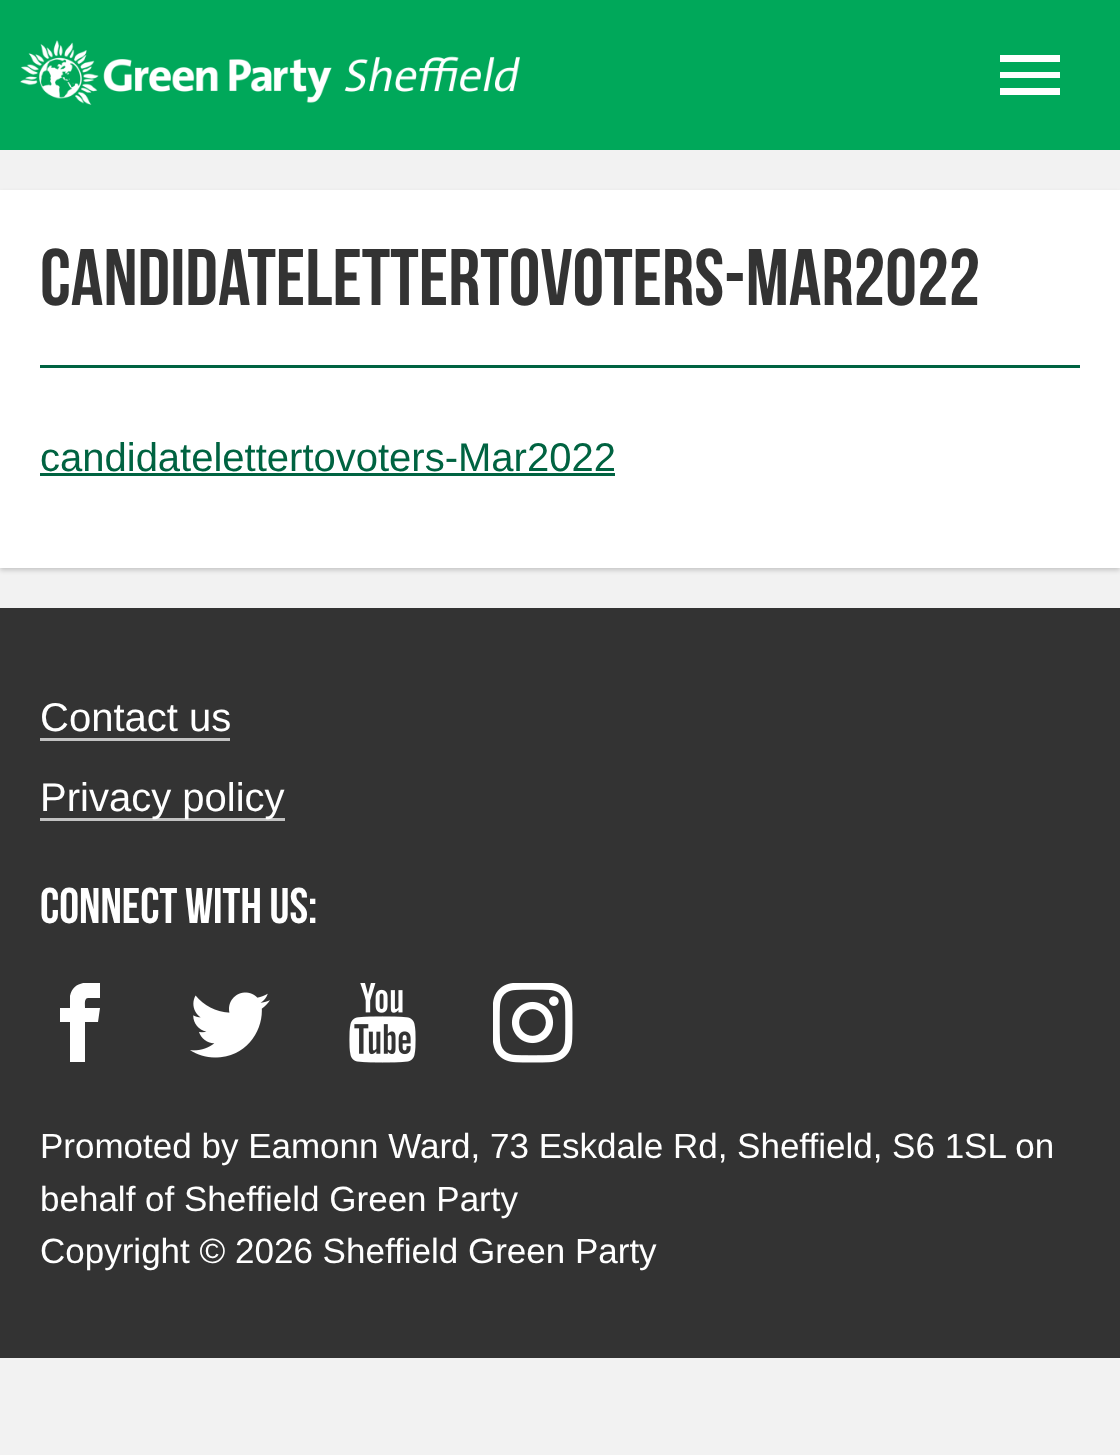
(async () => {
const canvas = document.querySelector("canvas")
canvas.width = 1120
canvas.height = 1455
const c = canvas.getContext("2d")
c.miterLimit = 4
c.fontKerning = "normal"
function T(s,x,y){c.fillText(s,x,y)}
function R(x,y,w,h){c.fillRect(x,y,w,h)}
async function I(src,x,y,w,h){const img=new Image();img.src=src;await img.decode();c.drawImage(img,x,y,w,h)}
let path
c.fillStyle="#f2f2f2"
R(0,0,1120,1455)
c.fillStyle="#00a85a"
R(0,0,1120,150)
await I("1.png",20,40,500,65)
c.fillStyle="#fff"
path = new Path2D("M1000 55h60v7h-60zm0 23v-6h60v6zm0 17v-7h60v7z")
c.fill(path)
c.fillStyle="#00000033"
c.filter="blur(2.5px)"
c.beginPath()
c.rect(0,193,1120,377)
c.fill()
c.filter="none"
c.fillStyle="#fff"
R(0,190,1120,378)
c.fillStyle="#006341"
R(40,365,1040,3)
c.font="80px Bebas Neue"
c.fillStyle="#333"
T("candidatelettertovoters-Mar2022",40,305)
c.font="40px Liberation Sans"
c.fillStyle="#006341"
T("candidatelettertovoters-Mar2022",40,471)
R(40,473,575,3)
c.fillStyle="#333"
R(0,608,1120,750)
c.fillStyle="#fff"
T("Contact us",40,731)
c.fillStyle="#c2c2c2"
R(40,738,190,3)
R(40,818,245,3)
c.fillStyle="#fff"
T("Privacy policy",40,811)
c.font="50px Bebas Neue"
T("Connect with us:",40,923)
c.save()
c.beginPath()
c.rect(40,983,80,80)
c.clip()
path = new Path2D("M88 998h12v-16c-12 0-27-1-30 14v12h-10v14h10v40h15v-40h13l2-14h-15c0-3-1-10 3-10z")
c.fill(path)
c.restore()
await I("2.png",190,992,80,66)
await I("3.png",349,983,67,80)
await I("4.png",493,983,80,80)
c.font="35px Liberation Sans"
T("Promoted by Eamonn Ward, 73 Eskdale Rd, Sheffield, S6 1SL on",40,1158)
T("behalf of Sheffield Green Party",40,1211)
T("Copyright © 2026 Sheffield Green Party",40,1263)
})()
